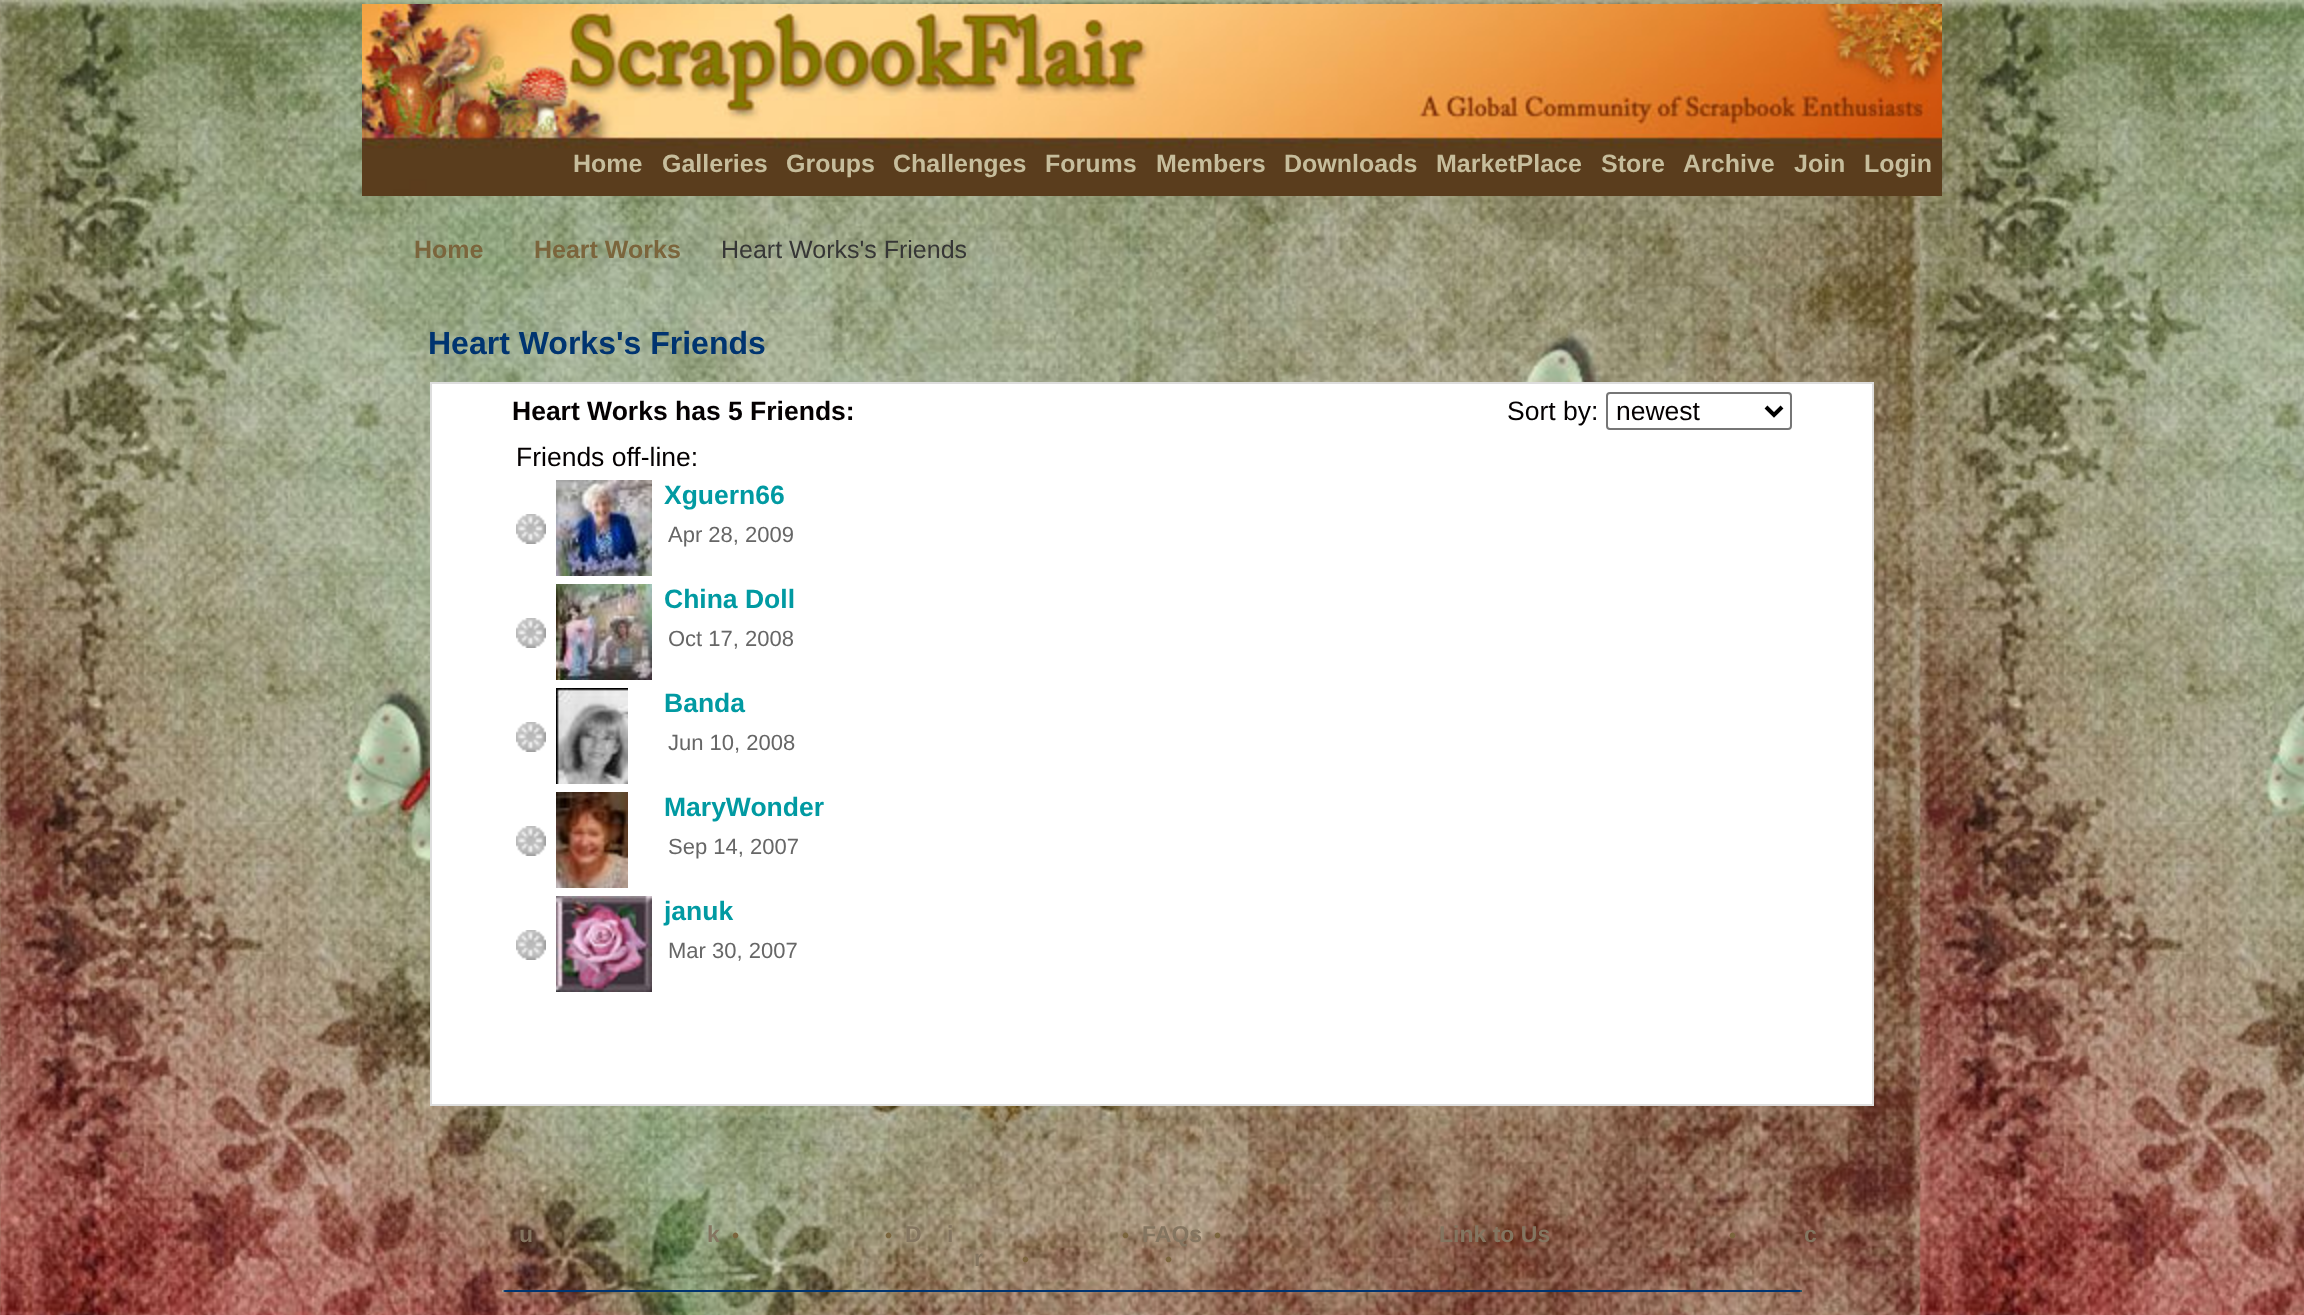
(async () => {
const canvas = document.querySelector("canvas")
canvas.width = 2304
canvas.height = 1315
const c = canvas.getContext("2d")
c.miterLimit = 4
c.fontKerning = "normal"
function T(s,x,y){c.fillText(s,x,y)}
function R(x,y,w,h){c.fillRect(x,y,w,h)}
async function I(src,x,y,w,h){const img=new Image();img.src=src;await img.decode();c.drawImage(img,x,y,w,h)}
let path
c.fillStyle="#fff"
R(0,0,2304,1315)
await I("1.png",0,0,2304,1315)
await I("2.png",362,4,1580,192)
c.font="bold 25px Liberation Sans"
c.fillStyle="#c6bd9c"
T("Home",573,172)
T("Galleries",662,172)
T("Groups",786,172)
T("Challenges",893,172)
T("Forums",1045,172)
T("Members",1156,172)
T("Downloads",1284,172)
T("MarketPlace",1436,172)
T("Store",1601,172)
T("Archive",1683,172)
T("Join",1794,172)
T("Login",1864,172)
c.fillStyle="#7b653c"
T("Home",414,258)
T("Heart Works",534,258)
c.font="25px Liberation Sans"
c.fillStyle="#363636"
T("Heart Works's Friends",721,258)
c.font="bold 32px Liberation Sans"
c.fillStyle="#003470"
T("Heart Works's Friends",428,354)
c.fillStyle="#fff"
c.beginPath()
c.rect(431,383,1442,722)
c.fill()
c.strokeStyle="#ddd"
c.lineWidth=2
c.stroke()
c.font="bold 26.5px Liberation Sans"
c.fillStyle="#040001"
T("Heart Works has 5 Friends:",512,420)
c.font="26.5px Liberation Sans"
T("Sort by:",1507,420)
c.beginPath()
c.roundRect(1607,393,184,36,3)
c.strokeStyle="#767676"
c.stroke()
path = new Path2D("M1766 407l8 8l8-8")
c.strokeStyle="#000"
c.lineWidth=4
c.stroke(path)
T("newest",1616,420)
T("Friends off-line:",516,466)
await I("3.png",516,514,30,30)
await I("4.png",556,480,96,96)
c.font="bold 26.5px Liberation Sans"
c.fillStyle="#019aa2"
T("Xguern66",664,504)
c.font="22px Liberation Sans"
c.fillStyle="#666"
T("Apr 28, 2009",668,542)
await I("3.png",516,618,30,30)
await I("5.png",556,584,96,96)
c.font="bold 26.5px Liberation Sans"
c.fillStyle="#019aa2"
T("China Doll",664,608)
c.font="22px Liberation Sans"
c.fillStyle="#666"
T("Oct 17, 2008",668,646)
await I("3.png",516,722,30,30)
await I("6.png",556,688,72,96)
c.font="bold 26.5px Liberation Sans"
c.fillStyle="#019aa2"
T("Banda",664,712)
c.font="22px Liberation Sans"
c.fillStyle="#666"
T("Jun 10, 2008",668,750)
await I("3.png",516,826,30,30)
await I("7.png",556,792,72,96)
c.font="bold 26.5px Liberation Sans"
c.fillStyle="#019aa2"
T("MaryWonder",664,816)
c.font="22px Liberation Sans"
c.fillStyle="#666"
T("Sep 14, 2007",668,854)
await I("3.png",516,930,30,30)
await I("8.png",556,896,96,96)
c.font="bold 26.5px Liberation Sans"
c.fillStyle="#019aa2"
T("januk",664,920)
c.font="22px Liberation Sans"
c.fillStyle="#666"
T("Mar 30, 2007",668,958)
c.font="bold 23px Liberation Sans"
c.fillStyle="#847560"
T("u",519,1242)
T("k",707,1242)
c.font="bold 20px Liberation Sans"
c.fillStyle="#7b653c"
T("•",732,1242)
T("•",885,1242)
c.font="bold 23px Liberation Sans"
c.fillStyle="#847560"
T("D",905,1242)
T("i",947,1242)
c.font="bold 20px Liberation Sans"
c.fillStyle="#7b653c"
T("•",1122,1242)
c.font="bold 23px Liberation Sans"
c.fillStyle="#847560"
T("FAQs",1142,1242)
c.font="bold 20px Liberation Sans"
c.fillStyle="#7b653c"
T("•",1214,1242)
c.font="bold 23px Liberation Sans"
c.fillStyle="#847560"
T("Link to Us",1439,1242)
c.font="bold 20px Liberation Sans"
c.fillStyle="#7b653c"
T("•",1729,1242)
c.font="bold 23px Liberation Sans"
c.fillStyle="#847560"
T("c",1804,1242)
T("r",974,1266)
c.font="bold 20px Liberation Sans"
c.fillStyle="#7b653c"
T("•",1022,1266)
T("•",1165,1266)
await I("9.png",502,1290,1300,2)
})()
